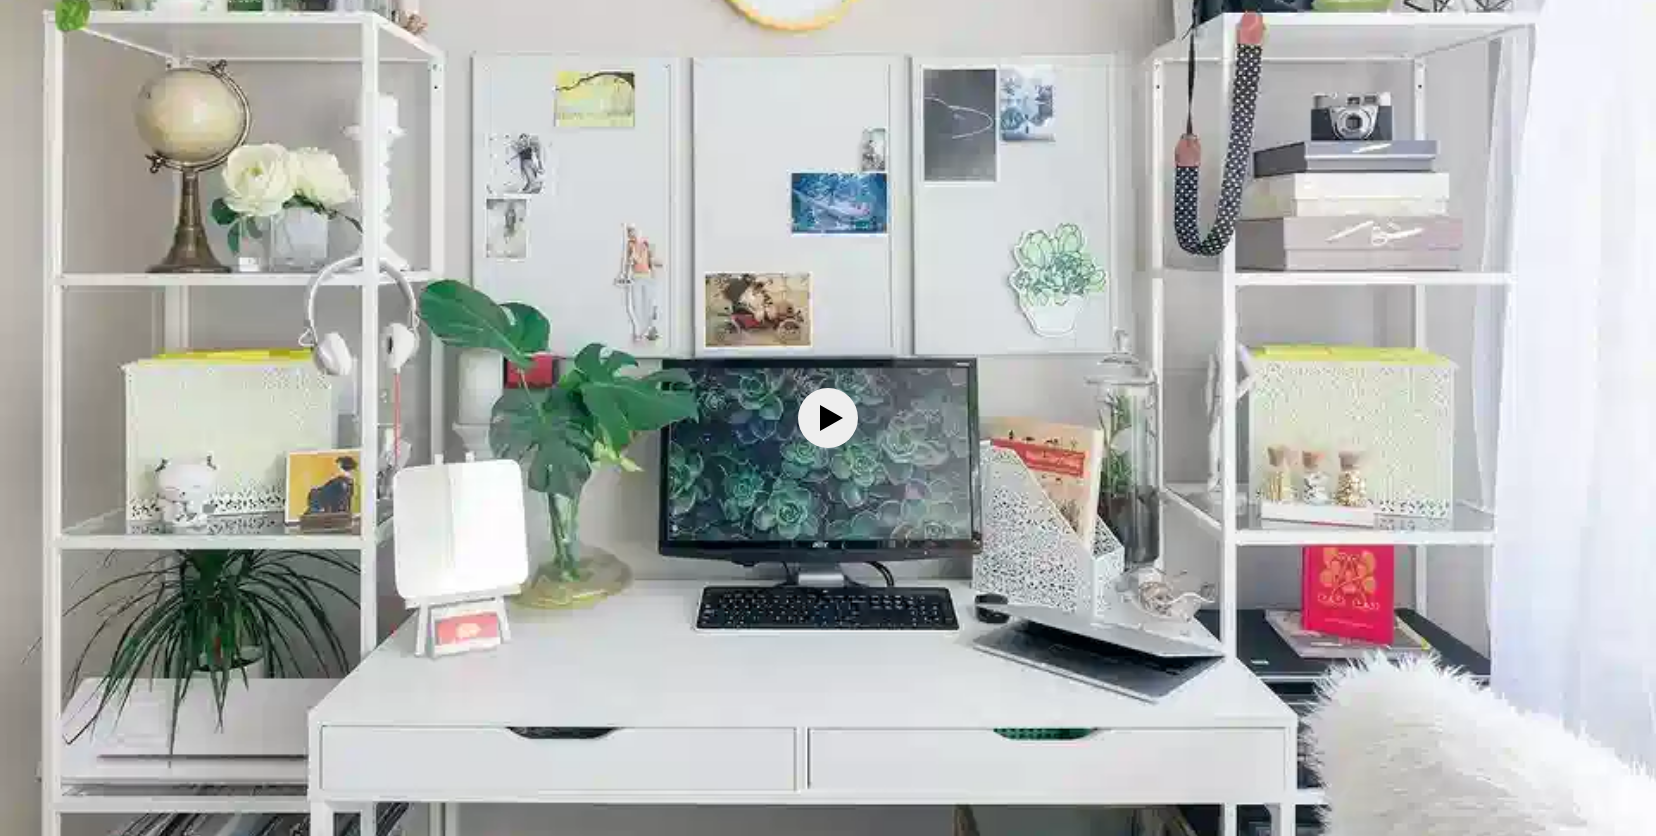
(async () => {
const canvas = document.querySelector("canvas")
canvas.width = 1656
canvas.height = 836
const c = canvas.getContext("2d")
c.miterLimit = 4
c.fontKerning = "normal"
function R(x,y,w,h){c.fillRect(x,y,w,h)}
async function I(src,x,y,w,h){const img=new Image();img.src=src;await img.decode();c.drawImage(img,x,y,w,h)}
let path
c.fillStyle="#fff"
R(0,0,1656,836)
await I("1.png",0,0,1656,836)
c.fillStyle="#eee"
c.beginPath()
c.arc(828,418,30,0,7)
c.fill()
c.fillStyle="#000"
path = new Path2D("M843 418l-23-13v26z")
c.fill(path)
})()
